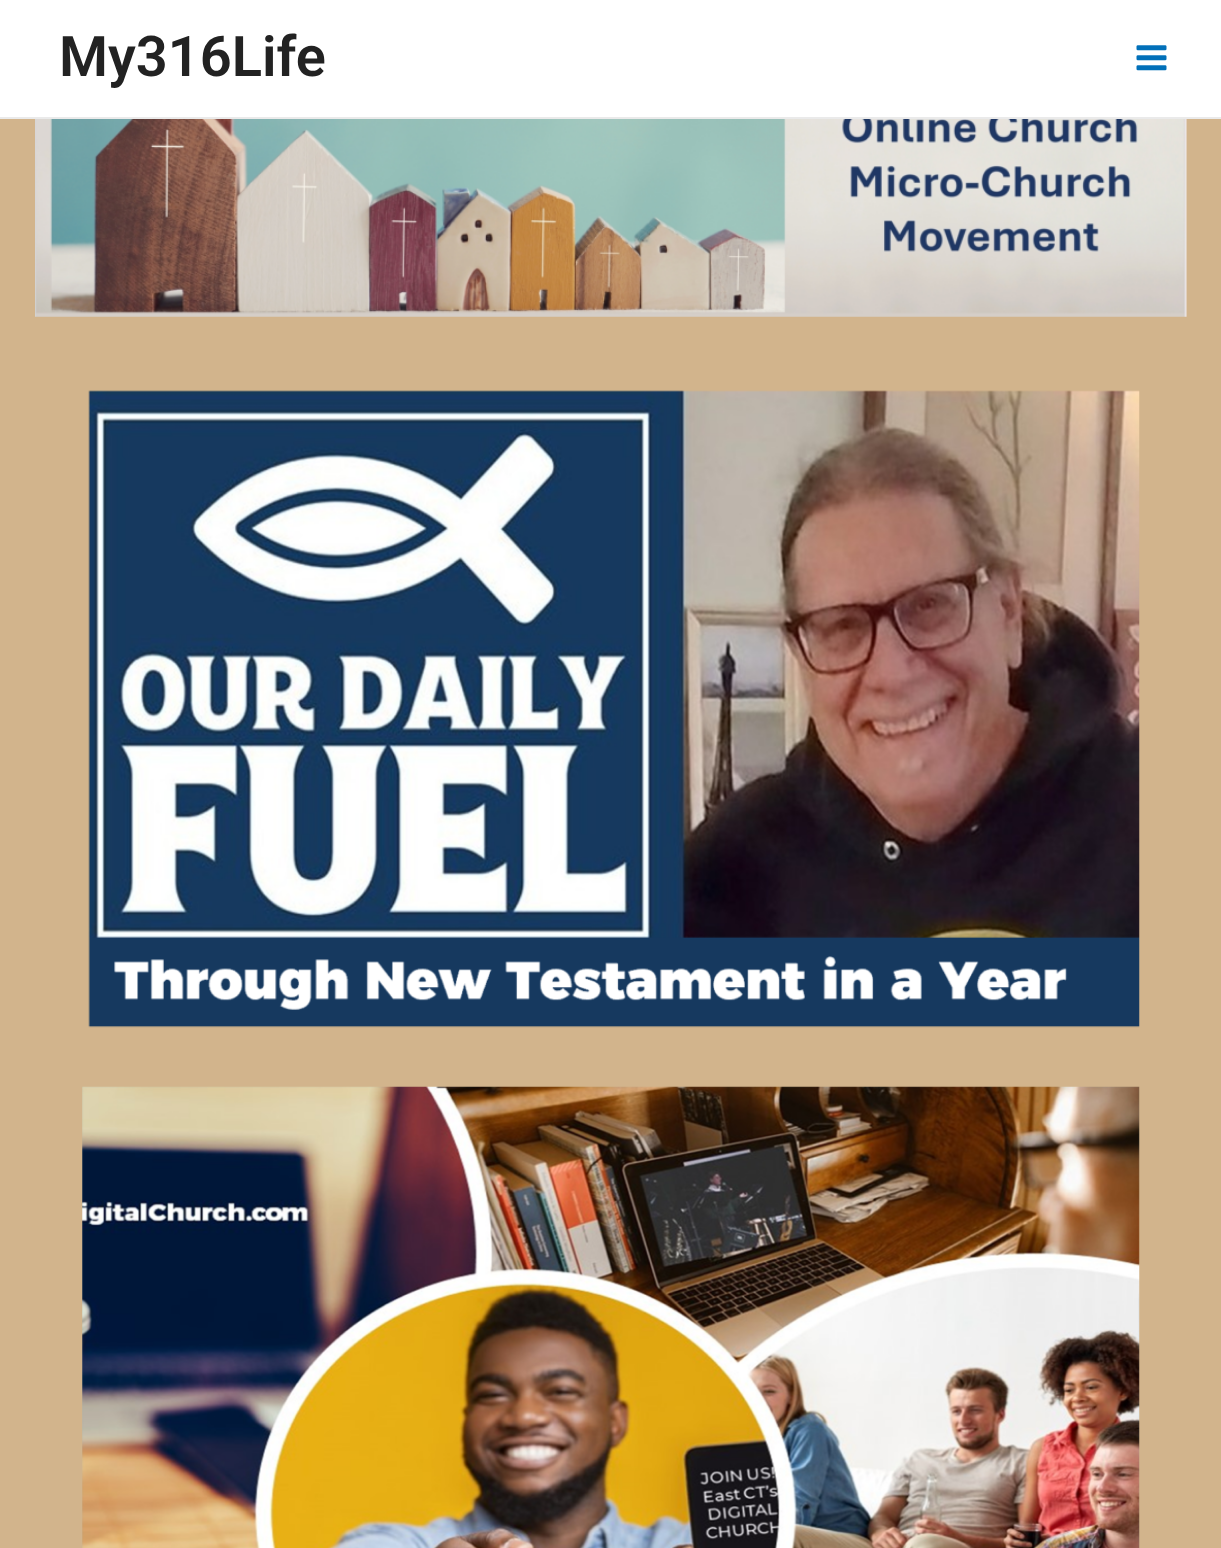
(async () => {
const canvas = document.querySelector("canvas")
canvas.width = 1221
canvas.height = 1548
const c = canvas.getContext("2d")
c.miterLimit = 4
c.fontKerning = "normal"
function T(s,x,y){c.fillText(s,x,y)}
function R(x,y,w,h){c.fillRect(x,y,w,h)}
async function I(src,x,y,w,h){const img=new Image();img.src=src;await img.decode();c.drawImage(img,x,y,w,h)}
c.fillStyle="#d2b48c"
R(0,0,1221,1548)
c.fillStyle="#fff"
R(0,0,1221,117)
c.fillStyle="#eaeaea"
R(0,117,1221,2)
c.font="600 56px Roboto"
c.fillStyle="#222"
T("My316Life",59,76)
await I("1.png",1136,45,31,26)
await I("2.png",35,119,1152,198)
await I("3.png",88,390,1052,638)
await I("4.png",82,1086,1058,462)
})()
